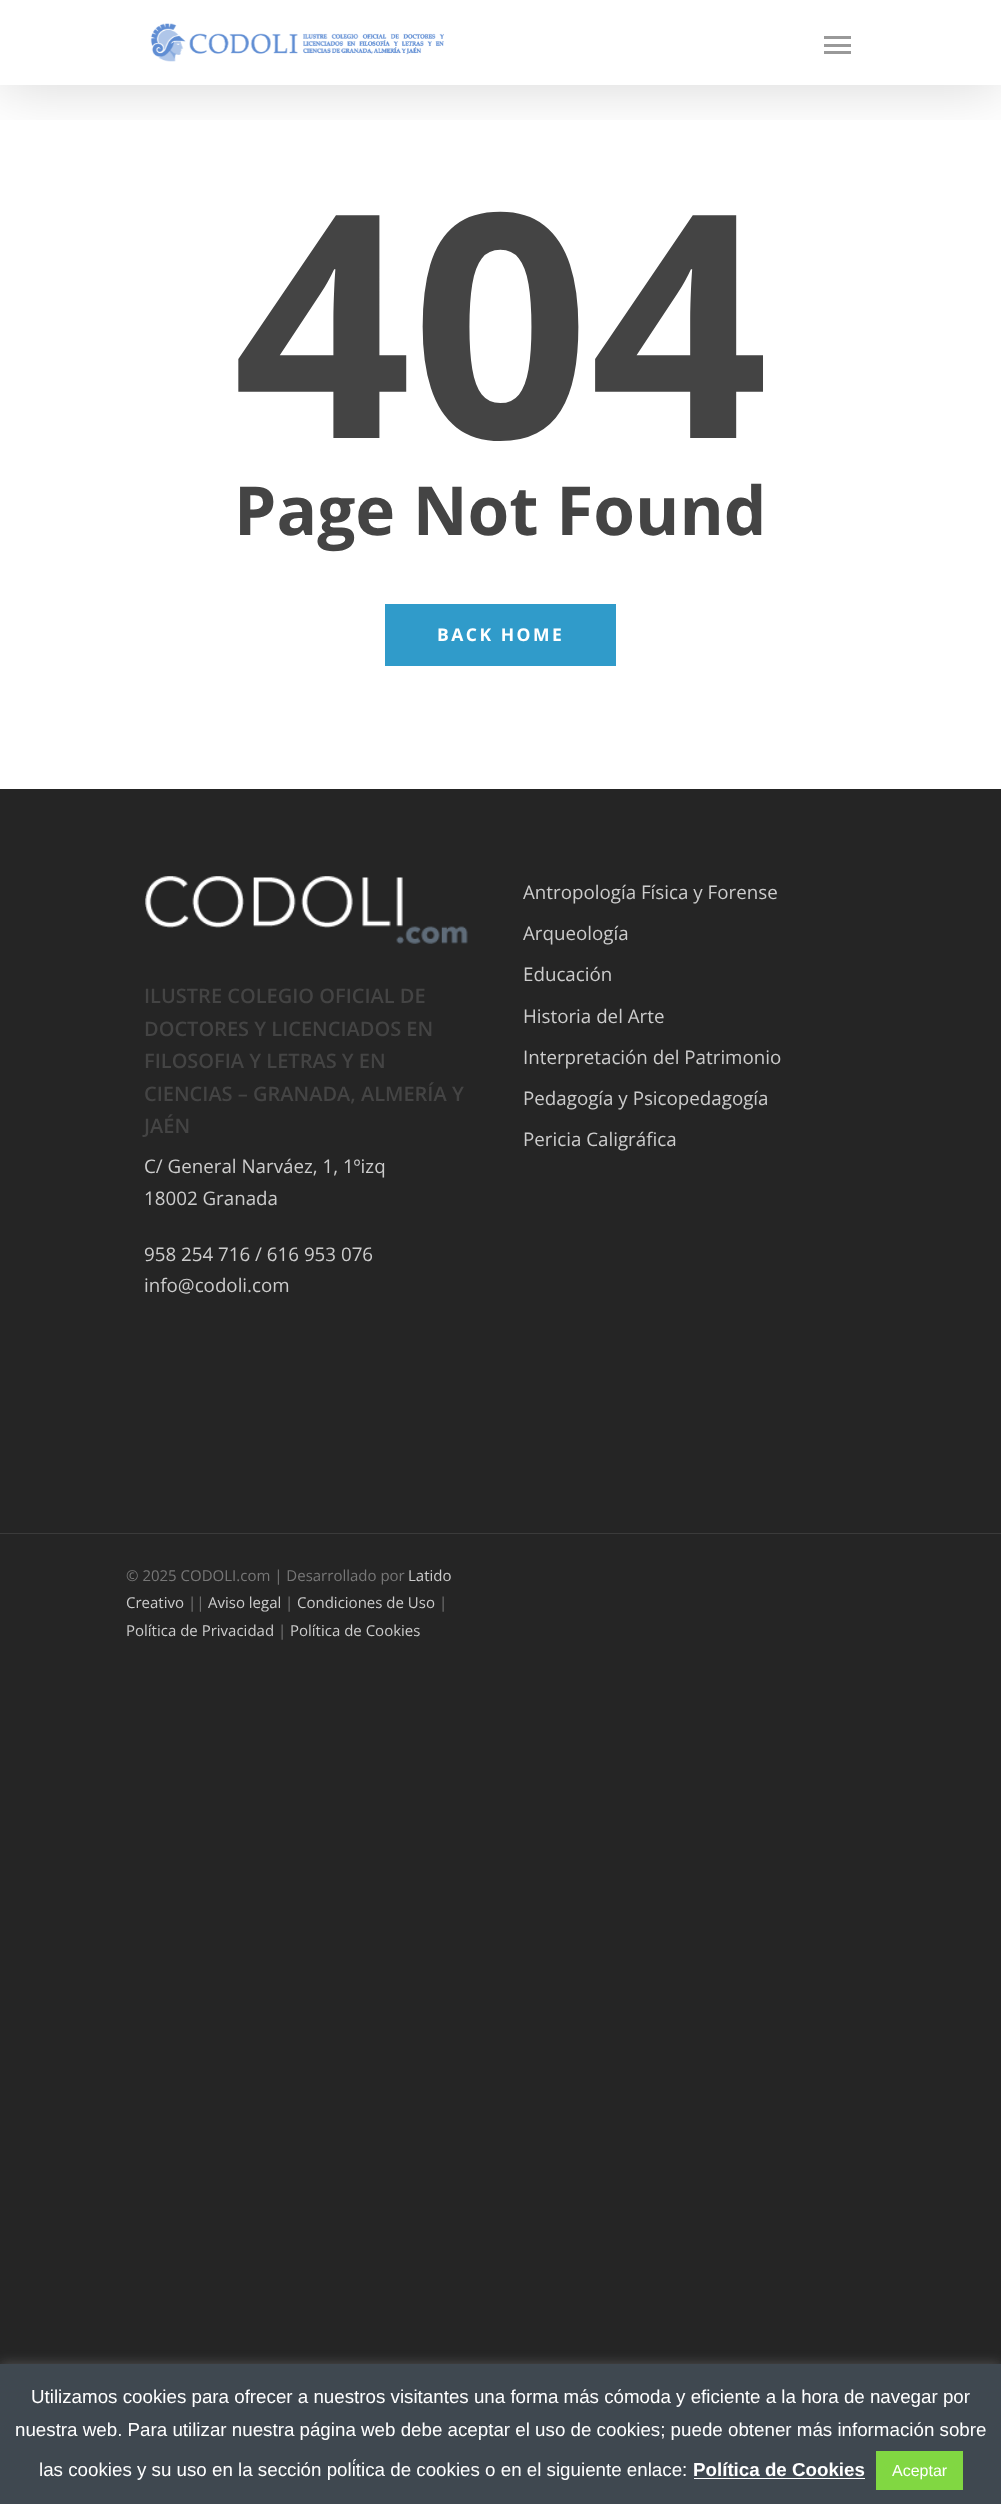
(async () => {
const canvas = document.querySelector("canvas")
canvas.width = 1001
canvas.height = 2504
const c = canvas.getContext("2d")
c.miterLimit = 4
c.fontKerning = "normal"
function T(s,x,y){c.fillText(s,x,y)}
function R(x,y,w,h){c.fillRect(x,y,w,h)}
async function I(src,x,y,w,h){const img=new Image();img.src=src;await img.decode();c.drawImage(img,x,y,w,h)}
c.fillStyle="#252525"
R(0,0,1001,2504)
c.fillStyle="#fff"
R(0,0,1001,789)
c.save()
c.beginPath()
c.rect(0,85,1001,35)
c.clip()
c.fillStyle="#00000026"
c.filter="blur(28px)"
c.beginPath()
c.rect(0,4,1001,85)
c.fill()
c.filter="none"
c.restore()
await I("1.png",150,23,294,39)
c.fillStyle="#999"
R(824,36,27,3)
R(824,51,27,3)
R(824,44,27,3)
c.font="bold 312px Open Sans"
c.fillStyle="#444"
T("404",233,438)
c.font="bold 67.5px Open Sans"
T("Page Not Found",234,535)
c.fillStyle="#309bca"
R(385,604,231,62)
c.letterSpacing="2.5px"
c.font="bold 17.5px Open Sans"
c.fillStyle="#fff"
T("BACK HOME",437,641)
await I("2.png",145,876,323,68)
c.letterSpacing="0px"
c.font="600 20px Open Sans"
c.fillStyle="#444"
T("ILUSTRE COLEGIO OFICIAL DE",144,1003)
T("DOCTORES Y LICENCIADOS EN",144,1036)
T("FILOSOFIA Y LETRAS Y EN",144,1068)
T("CIENCIAS – GRANADA, ALMERÍA Y",144,1101)
T("JAÉN",144,1133)
c.font="18.75px Open Sans"
c.fillStyle="#ccc"
T("C/ General Narváez, 1, 1ºizq",144,1173)
T("18002 Granada",144,1205)
T("958 254 716 / 616 953 076",144,1261)
T("info@codoli.com",144,1292)
T("Antropología Física y Forense",523,899)
T("Arqueología",523,940)
T("Educación",523,981)
T("Historia del Arte",523,1023)
T("Interpretación del Patrimonio",523,1064)
T("Pedagogía y Psicopedagogía",523,1105)
T("Pericia Caligráfica",523,1146)
c.fillStyle="#3b3b3b"
R(0,1533,1001,1)
c.font="15px Open Sans"
c.fillStyle="#777"
T("© 2025 CODOLI.com | Desarrollado por",126,1581)
c.fillStyle="#ccc"
T("Latido",408,1581)
T("Creativo",126,1608)
c.fillStyle="#777"
T("||",188,1608)
c.fillStyle="#ccc"
T("Aviso legal",208,1608)
c.fillStyle="#777"
T("|",285,1608)
c.fillStyle="#ccc"
T("Condiciones de Uso",297,1608)
c.fillStyle="#777"
T("|",439,1608)
c.fillStyle="#ccc"
T("Política de Privacidad",126,1636)
c.fillStyle="#777"
T("|",278,1636)
c.fillStyle="#ccc"
T("Política de Cookies",290,1636)
c.fillStyle="#acabab4d"
c.filter="blur(6px)"
c.beginPath()
c.rect(0,2363,1001,141)
c.fill()
c.filter="none"
c.fillStyle="#3f4850"
R(0,2364,1001,140)
c.font="18.75px Liberation Sans"
c.fillStyle="#fff"
T("Utilizamos cookies para ofrecer a nuestros visitantes una forma más cómoda y eficiente a la hora de navegar por",31,2403)
T("nuestra web. Para utilizar nuestra página web debe aceptar el uso de cookies; puede obtener más información sobre",15,2436)
T("las cookies y su uso en la sección política de cookies o en el siguiente enlace:",39,2476)
c.font="bold 18.75px Liberation Sans"
T("Política de Cookies",693,2476)
R(694,2478,171,1)
c.fillStyle="#81d742"
R(876,2451,87,39)
c.font="16px Liberation Sans"
c.fillStyle="#fff"
T("Aceptar",892,2476)
})()
